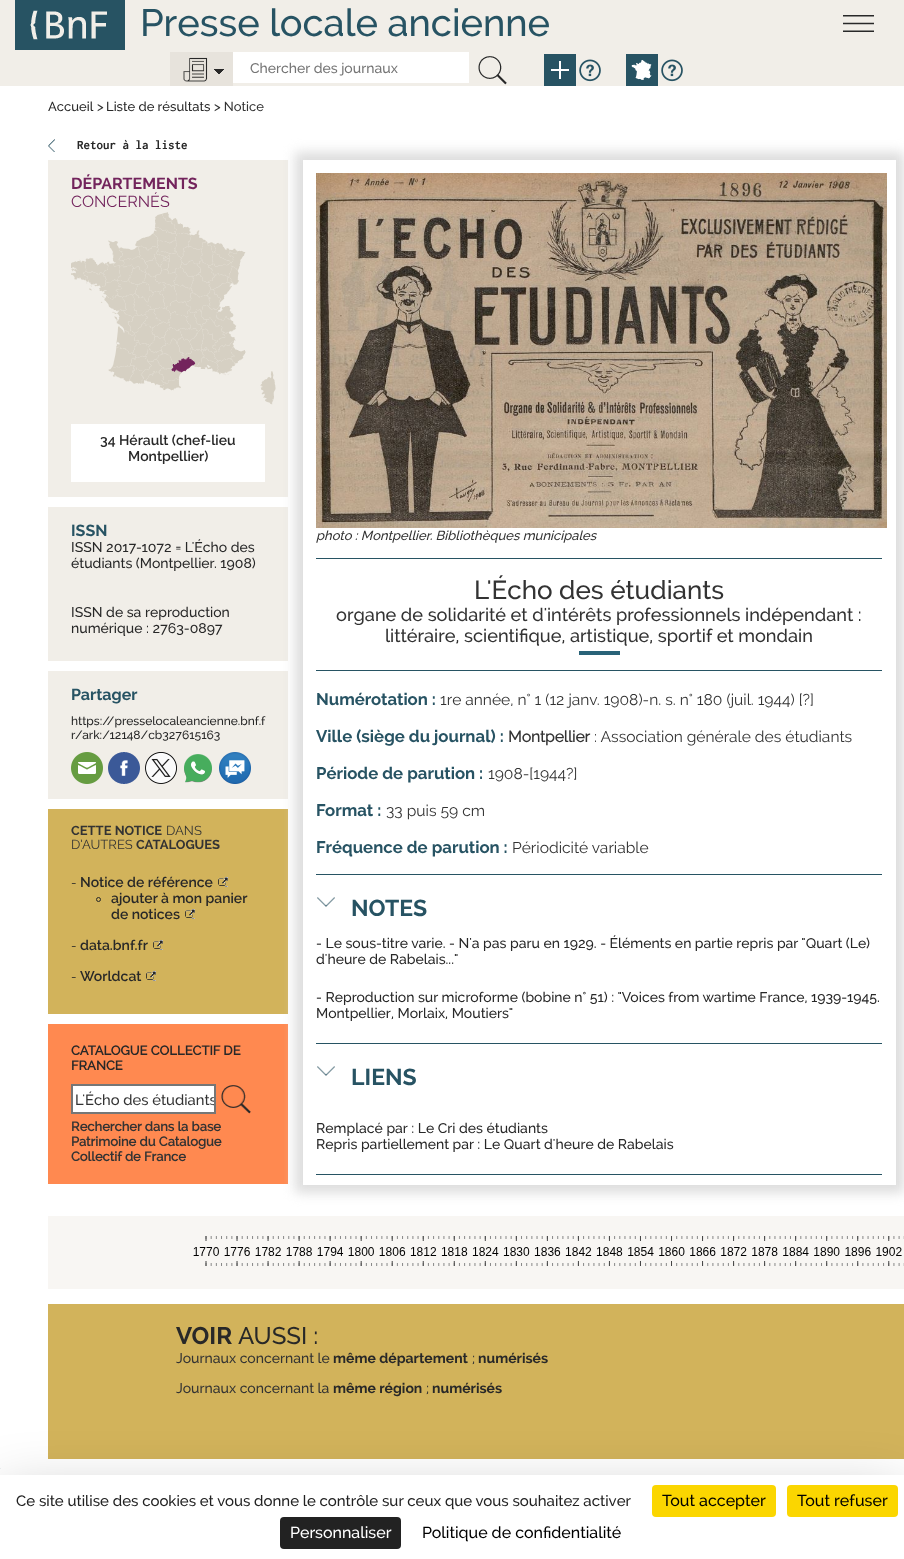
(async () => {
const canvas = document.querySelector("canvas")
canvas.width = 904
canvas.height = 1559
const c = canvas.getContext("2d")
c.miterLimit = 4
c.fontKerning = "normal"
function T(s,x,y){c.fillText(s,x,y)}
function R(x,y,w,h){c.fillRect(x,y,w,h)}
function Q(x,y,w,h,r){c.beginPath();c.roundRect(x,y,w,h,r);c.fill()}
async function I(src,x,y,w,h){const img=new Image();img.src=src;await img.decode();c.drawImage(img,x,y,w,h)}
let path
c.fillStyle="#fff"
R(0,0,904,1559)
c.fillStyle="#f1eee8"
R(0,0,904,86)
await I("1.png",15,0,110,50)
c.font="500 38px Raleway"
c.fillStyle="#275363"
T("Presse locale ancienne",140,36)
await I("2.png",843,15,31,17)
await I("3.png",170,52,63,34)
c.fillStyle="#fff"
R(233,52,236,31)
c.font="500 14px Raleway"
c.fillStyle="#757575"
T("Chercher des journaux",250,73)
await I("4.png",478,56,29,29)
await I("5.png",544,54,32,32)
await I("6.png",579,59,22,23)
await I("7.png",626,54,32,32)
await I("6.png",661,59,22,23)
c.font="500 13px Raleway"
c.fillStyle="#282828"
T("Accueil",48,111)
c.fillStyle="#333"
T(">",97,111)
c.fillStyle="#282828"
T("Liste de résultats",106,111)
c.fillStyle="#333"
T("> Notice",214,111)
await I("8.png",48,139,7,13)
c.font="bold 13px Inconsolata"
c.fillStyle="#282828"
T("Retour à la liste",77,149)
c.fillStyle="#f1eee8"
R(48,160,240,337)
c.font="bold 16px Raleway"
c.fillStyle="#73245c"
T("DÉPARTEMENTS",71,189)
c.font="16px Raleway"
T("CONCERNÉS",71,207)
await I("9.png",71,212,205,193)
c.fillStyle="#fff"
R(71,424,194,58)
c.font="600 14px Raleway"
c.fillStyle="#282828"
T("34 Hérault (chef-lieu",100,445)
T("Montpellier)",128,461)
c.fillStyle="#f1eee8"
R(48,507,240,154)
c.font="bold 16px Raleway"
c.fillStyle="#275363"
T("ISSN",71,536)
c.font="500 14px Raleway"
c.fillStyle="#282828"
T("ISSN 2017-1072 = L'Écho des",71,552)
T("étudiants (Montpellier. 1908)",71,568)
T("ISSN de sa reproduction",71,617)
T("numérique : 2763-0897",71,633)
c.fillStyle="#f1eee8"
R(48,671,240,128)
c.font="bold 16px Raleway"
c.fillStyle="#275363"
T("Partager",71,700)
c.font="500 12px Raleway"
c.fillStyle="#282828"
T("https://presselocaleancienne.bnf.f",71,725)
T("r/ark:/12148/cb327615163",71,739)
await I("10.png",71,752,32,32)
await I("11.png",108,752,32,32)
await I("12.png",145,752,32,32)
await I("13.png",184,754,28,29)
await I("14.png",219,752,32,32)
c.fillStyle="#d2b35b"
R(48,809,240,205)
c.font="bold 13px Raleway"
c.fillStyle="#333"
T("CETTE NOTICE",71,835)
c.font="13px Raleway"
T("DANS",166,835)
T("D’AUTRES",71,849)
c.font="bold 13px Raleway"
T("CATALOGUES",136,849)
c.font="13px Raleway"
c.fillStyle="#282828"
T("-",71,887)
c.font="600 14px Raleway"
T("Notice de référence",80,887)
await I("15.png",218,877,10,10)
c.beginPath()
c.arc(98.5,899.5,2,0,7)
c.strokeStyle="#282828"
c.stroke()
T("ajouter à mon panier",111,903)
T("de notices",111,919)
await I("15.png",185,909,10,10)
c.font="13px Raleway"
T("-",71,950)
c.font="600 14px Raleway"
T("data.bnf.fr",80,950)
await I("15.png",153,940,10,10)
c.font="13px Raleway"
T("-",71,981)
c.font="600 14px Raleway"
T("Worldcat",80,981)
await I("15.png",146,971,10,10)
c.fillStyle="#ff8950"
R(48,1024,240,160)
c.font="bold 13px 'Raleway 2'"
c.fillStyle="#282828"
T("CATALOGUE COLLECTIF DE",71,1055)
T("FRANCE",71,1070)
c.fillStyle="#fff"
c.beginPath()
c.rect(72,1085,143,28)
c.fill()
c.strokeStyle="#767676"
c.lineWidth=2
c.stroke()
c.save()
c.beginPath()
c.rect(75,1091,139,17)
c.clip()
c.font="500 14.75px Raleway"
c.fillStyle="#333"
T("L'Écho des étudiants",75,1105)
c.restore()
await I("16.png",221,1085,30,29)
c.fillStyle="#333"
T("Rechercher dans la base",71,1131)
T("Patrimoine du Catalogue",71,1146)
T("Collectif de France",71,1161)
c.save()
path = new Path2D("M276 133h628v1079h-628zm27 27h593v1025h-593z")
c.clip(path,"evenodd")
c.fillStyle="#ddd"
c.filter="blur(6px)"
c.beginPath()
c.rect(295,152,609,1041)
c.fill()
c.filter="none"
c.restore()
await I("17.png",316,173,571,355)
c.font="italic 500 13px Raleway"
T("photo : Montpellier. Bibliothèques municipales",316,540)
c.fillStyle="#275363"
R(316,558,566,1)
R(316,670,566,1)
c.font="500 26px Raleway"
c.fillStyle="#333"
T("L'Écho des étudiants",474,599)
c.font="500 18.2px Raleway"
T("organe de solidarité et d'intérêts professionnels indépendant :",336,621)
T("littéraire, scientifique, artistique, sportif et mondain",385,642)
c.fillStyle="#296378"
R(579,651,41,4)
c.fillStyle="#275363"
R(316,874,566,1)
c.font="bold 16.75px Raleway"
T("Numérotation :",316,705)
c.font="15.6px Raleway"
c.fillStyle="#333"
T("1re année, n° 1 (12 janv. 1908)-n. s. n° 180 (juil. 1944) [?]",440,705)
c.font="bold 16.75px Raleway"
c.fillStyle="#275363"
T("Ville (siège du journal) :",316,742)
c.font="bold 15.6px 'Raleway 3'"
c.fillStyle="#333"
T("Montpellier",508,742)
c.font="15.6px Raleway"
T(": Association générale des étudiants",594,742)
c.font="bold 16.75px Raleway"
c.fillStyle="#275363"
T("Période de parution :",316,779)
c.font="15.6px Raleway"
c.fillStyle="#333"
T("1908-[1944?]",488,779)
c.font="bold 16.75px Raleway"
c.fillStyle="#275363"
T("Format :",316,816)
c.font="15.6px Raleway"
c.fillStyle="#333"
T("33 puis 59 cm",386,816)
c.font="bold 16.75px Raleway"
c.fillStyle="#275363"
T("Fréquence de parution :",316,853)
c.font="15.6px Raleway"
c.fillStyle="#333"
T("Périodicité variable",512,853)
c.fillStyle="#275363"
R(316,1043,566,1)
await I("18.png",317,897,18,10)
c.font="bold 23px Raleway"
T("NOTES",351,916)
c.font="500 14px Raleway"
c.fillStyle="#282828"
T("- Le sous-titre varie. - N'a pas paru en 1929. - Éléments en partie repris par \"Quart (Le)",316,948)
T("d'heure de Rabelais...\"",316,964)
T("- Reproduction sur microforme (bobine n° 51) : \"Voices from wartime France, 1939-1945.",316,1002)
T("Montpellier, Morlaix, Moutiers\"",316,1018)
c.fillStyle="#275363"
R(316,1174,566,1)
await I("18.png",317,1066,18,10)
c.font="bold 23px Raleway"
T("LIENS",351,1085)
c.font="500 14px Raleway"
c.fillStyle="#282828"
T("Remplacé par : Le Cri des étudiants",316,1133)
T("Repris partiellement par : Le Quart d'heure de Rabelais",316,1149)
c.fillStyle="#f8f6f3"
R(48,1216,856,73)
await I("19.png",193,1236,711,30)
c.fillStyle="#d2b35b"
R(48,1304,856,155)
c.font="bold 24px Raleway"
c.fillStyle="#282828"
T("VOIR",176,1344)
c.font="500 24px Raleway"
T("AUSSI :",238,1344)
c.font="500 14px Raleway"
c.fillStyle="#333"
T("Journaux concernant le",176,1363)
c.font="bold 14px Raleway"
c.fillStyle="#282828"
T("même département",333,1363)
c.font="500 14px Raleway"
c.fillStyle="#333"
T(";",472,1363)
c.font="bold 14px Raleway"
c.fillStyle="#282828"
T("numérisés",478,1363)
c.font="500 14px Raleway"
c.fillStyle="#333"
T("Journaux concernant la",176,1393)
c.font="bold 14px Raleway"
c.fillStyle="#282828"
T("même région",333,1393)
c.font="500 14px Raleway"
c.fillStyle="#333"
T(";",426,1393)
c.font="bold 14px Raleway"
c.fillStyle="#282828"
T("numérisés",432,1393)
c.fillStyle="#edf1f2"
R(0,1468,1,1)
c.fillStyle="#00000040"
c.filter="blur(30px)"
c.beginPath()
c.rect(0,1495,904,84)
c.fill()
c.filter="none"
c.fillStyle="#fff"
R(0,1475,904,84)
c.font="500 15px Raleway"
c.fillStyle="#222"
T("Ce site utilise des cookies et vous donne le contrôle sur ceux que vous souhaitez activer",16,1506)
c.fillStyle="#fbd600"
Q(652,1485,124,32,4)
c.font="500 16px Raleway"
c.fillStyle="#000"
T("Tout accepter",662,1506)
c.fillStyle="#fbd600"
Q(787,1485,111,32,4)
c.fillStyle="#000"
T("Tout refuser",797,1506)
c.fillStyle="#222"
Q(280,1517,121,32,4)
c.fillStyle="#fff"
T("Personnaliser",290,1538)
c.fillStyle="#000"
T("Politique de confidentialité",422,1538)
})()
